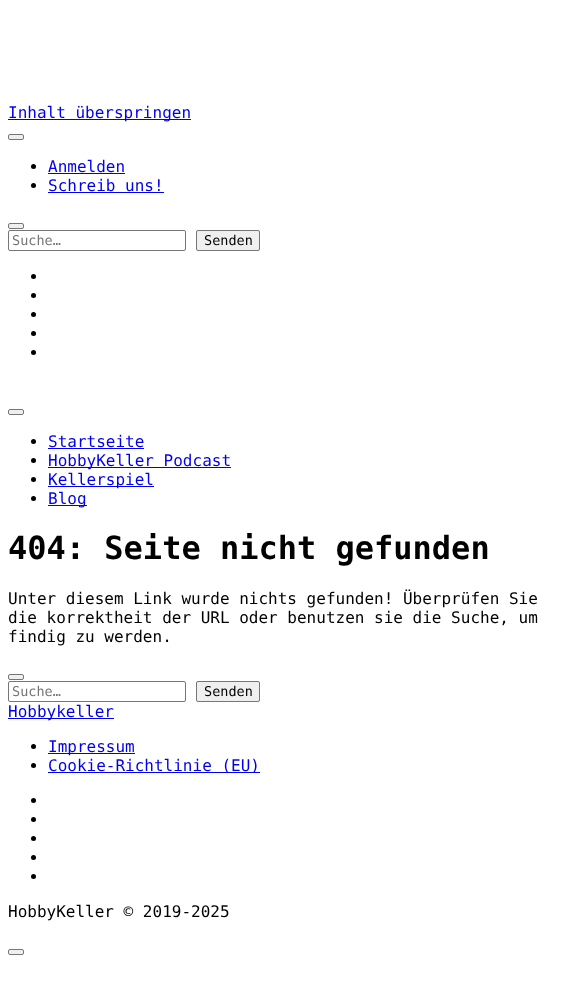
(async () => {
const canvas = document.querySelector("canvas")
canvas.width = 575
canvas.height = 993
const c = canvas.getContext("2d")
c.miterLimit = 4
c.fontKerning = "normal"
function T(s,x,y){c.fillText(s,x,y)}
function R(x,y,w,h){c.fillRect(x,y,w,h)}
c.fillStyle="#fff"
R(0,0,575,993)
c.fillStyle="#00e"
R(8,119,183,1)
c.font="16px DejaVu Sans Mono"
T("Inhalt überspringen",8,118)
c.fillStyle="#efefef"
c.beginPath()
c.roundRect(8.5,134.5,15,5,1.5)
c.fill()
c.strokeStyle="#767676"
c.stroke()
c.fillStyle="#000"
c.beginPath()
c.arc(33.5,166.5,2.5,0,7)
c.fill()
c.fillStyle="#00e"
T("Anmelden",48,172)
R(48,173,77,1)
c.fillStyle="#000"
c.beginPath()
c.arc(33.5,185.5,2.5,0,7)
c.fill()
c.fillStyle="#00e"
T("Schreib uns!",48,191)
R(48,192,116,1)
c.fillStyle="#efefef"
c.beginPath()
c.roundRect(8.5,223.5,15,5,1.5)
c.fill()
c.stroke()
c.beginPath()
c.roundRect(8.5,230.5,177,20,1.5)
c.stroke()
c.font="13.5px DejaVu Sans Mono"
c.fillStyle="#757575"
T("Suche…",12,245)
c.fillStyle="#efefef"
c.beginPath()
c.roundRect(196.5,230.5,63,20,1.5)
c.fill()
c.stroke()
c.fillStyle="#000"
T("Senden",204,245)
c.beginPath()
c.arc(33.5,276.5,2.5,0,7)
c.fill()
c.beginPath()
c.arc(33.5,295.5,2.5,0,7)
c.fill()
c.beginPath()
c.arc(33.5,314.5,2.5,0,7)
c.fill()
c.beginPath()
c.arc(33.5,333.5,2.5,0,7)
c.fill()
c.beginPath()
c.arc(33.5,352.5,2.5,0,7)
c.fill()
c.fillStyle="#efefef"
c.beginPath()
c.roundRect(8.5,409.5,15,5,1.5)
c.fill()
c.stroke()
c.fillStyle="#000"
c.beginPath()
c.arc(33.5,441.5,2.5,0,7)
c.fill()
c.font="16px DejaVu Sans Mono"
c.fillStyle="#00e"
T("Startseite",48,447)
R(48,448,96,1)
c.fillStyle="#000"
c.beginPath()
c.arc(33.5,460.5,2.5,0,7)
c.fill()
c.fillStyle="#00e"
R(48,467,183,1)
T("HobbyKeller Podcast",48,466)
c.fillStyle="#000"
c.beginPath()
c.arc(33.5,479.5,2.5,0,7)
c.fill()
c.fillStyle="#00e"
R(48,486,106,1)
T("Kellerspiel",48,485)
c.fillStyle="#000"
c.beginPath()
c.arc(33.5,498.5,2.5,0,7)
c.fill()
c.fillStyle="#00e"
R(48,505,39,1)
T("Blog",48,504)
c.font="bold 32px DejaVu Sans Mono"
c.fillStyle="#000"
T("404: Seite nicht gefunden",8,559)
c.font="16px DejaVu Sans Mono"
T("Unter diesem Link wurde nichts gefunden! Überprüfen Sie",8,604)
T("die korrektheit der URL oder benutzen sie die Suche, um",8,623)
T("findig zu werden.",8,642)
c.fillStyle="#efefef"
c.beginPath()
c.roundRect(8.5,674.5,15,5,1.5)
c.fill()
c.stroke()
c.beginPath()
c.roundRect(8.5,681.5,177,20,1.5)
c.stroke()
c.font="13.5px DejaVu Sans Mono"
c.fillStyle="#757575"
T("Suche…",12,696)
c.fillStyle="#efefef"
c.beginPath()
c.roundRect(196.5,681.5,63,20,1.5)
c.fill()
c.stroke()
c.fillStyle="#000"
T("Senden",204,696)
c.fillStyle="#00e"
R(8,718,106,1)
c.font="16px DejaVu Sans Mono"
T("Hobbykeller",8,717)
c.fillStyle="#000"
c.beginPath()
c.arc(33.5,746.5,2.5,0,7)
c.fill()
c.fillStyle="#00e"
R(48,753,87,1)
T("Impressum",48,752)
c.fillStyle="#000"
c.beginPath()
c.arc(33.5,765.5,2.5,0,7)
c.fill()
c.fillStyle="#00e"
R(48,772,212,1)
T("Cookie-Richtlinie (EU)",48,771)
c.fillStyle="#000"
c.beginPath()
c.arc(33.5,800.5,2.5,0,7)
c.fill()
c.beginPath()
c.arc(33.5,819.5,2.5,0,7)
c.fill()
c.beginPath()
c.arc(33.5,838.5,2.5,0,7)
c.fill()
c.beginPath()
c.arc(33.5,857.5,2.5,0,7)
c.fill()
c.beginPath()
c.arc(33.5,876.5,2.5,0,7)
c.fill()
T("HobbyKeller © 2019-2025",8,917)
c.fillStyle="#efefef"
c.beginPath()
c.roundRect(8.5,949.5,15,5,1.5)
c.fill()
c.stroke()
})()
